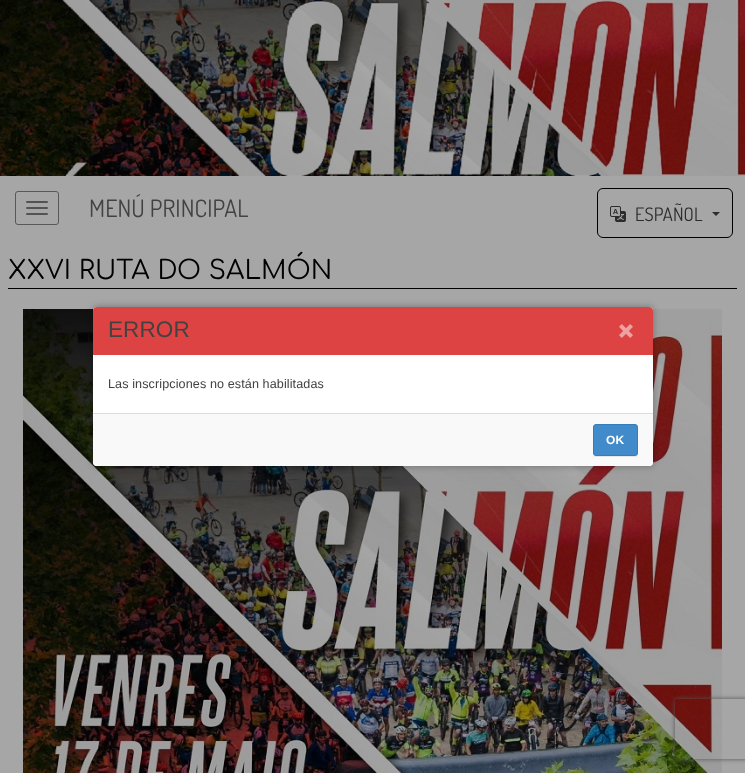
(async () => {
const canvas = document.querySelector("canvas")
canvas.width = 745
canvas.height = 773
const c = canvas.getContext("2d")
c.miterLimit = 4
c.fontKerning = "normal"
function T(s,x,y){c.fillText(s,x,y)}
function R(x,y,w,h){c.fillRect(x,y,w,h)}
function Q(x,y,w,h,r){c.beginPath();c.roundRect(x,y,w,h,r);c.fill()}
async function I(src,x,y,w,h){const img=new Image();img.src=src;await img.decode();c.drawImage(img,x,y,w,h)}
let path
c.fillStyle="#a6a6a6"
R(0,0,745,773)
await I("1.png",0,0,745,176)
c.beginPath()
c.roundRect(15.5,191.5,43,33,2.5)
c.strokeStyle="#585858"
c.stroke()
c.fillStyle="#535353"
Q(26,201,22,2,1)
Q(26,207,22,2,1)
Q(26,213,22,2,1)
c.letterSpacing="0.1px"
c.font="24px Dosis"
c.fillStyle="#424242"
T("MENÚ PRINCIPAL",89,217)
c.beginPath()
c.roundRect(597.5,188.5,135,49,5.5)
c.strokeStyle="#000"
c.stroke()
await I("2.png",610,206,16,16)
c.font="18.5px Dosis"
c.fillStyle="#2c2c2c"
T("ESPAÑOL",635,221)
path = new Path2D("M712 212h8l-4 4z")
c.fill(path)
c.fillStyle="#000"
R(8,288,729,1)
c.font="26px Comfortaa"
T("XXVI RUTA DO SALMÓN",8,279)
await I("3.png",23,309,699,464)
c.fillStyle="#0000004d"
c.filter="blur(3.5px)"
c.beginPath()
c.roundRect(93,307,560,159,4)
c.fill()
c.filter="none"
c.fillStyle="#fff"
Q(93,307,560,159,4)
c.fillStyle="#de4343"
c.beginPath()
c.roundRect(93,307,560,48,[4,4,0,0])
c.fill()
c.font="22.5px Liberation Sans"
c.fillStyle="#424242"
T("ERROR",108,337)
await I("4.png",619,324,14,14)
c.font="12.6px Liberation Sans"
T("Las inscripciones no están habilitadas",108,388)
c.fillStyle="#f9f9f9"
c.beginPath()
c.roundRect(93,413,560,53,[0,0,4,4])
c.fill()
c.fillStyle="#ddd"
R(93,413,560,1)
c.fillStyle="#00000014"
c.filter="blur(0.5px)"
c.beginPath()
c.roundRect(593,425,45,32,3)
c.fill()
c.filter="none"
c.fillStyle="#428bca"
c.beginPath()
c.roundRect(593.5,424.5,44,31,2.5)
c.fill()
c.strokeStyle="#357ebd"
c.stroke()
c.font="bold 12px Liberation Sans"
c.fillStyle="#fff"
T("OK",606,444)
c.save()
path = new Path2D("M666 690h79v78h-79zm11 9h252c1 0 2 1 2 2v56c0 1-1 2-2 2h-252c-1 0-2-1-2-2v-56c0-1 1-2 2-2z")
c.clip(path,"evenodd")
c.fillStyle="#535353"
c.filter="blur(2.5px)"
c.beginPath()
c.roundRect(675,699,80,60,2)
c.fill()
c.filter="none"
c.restore()
})()
